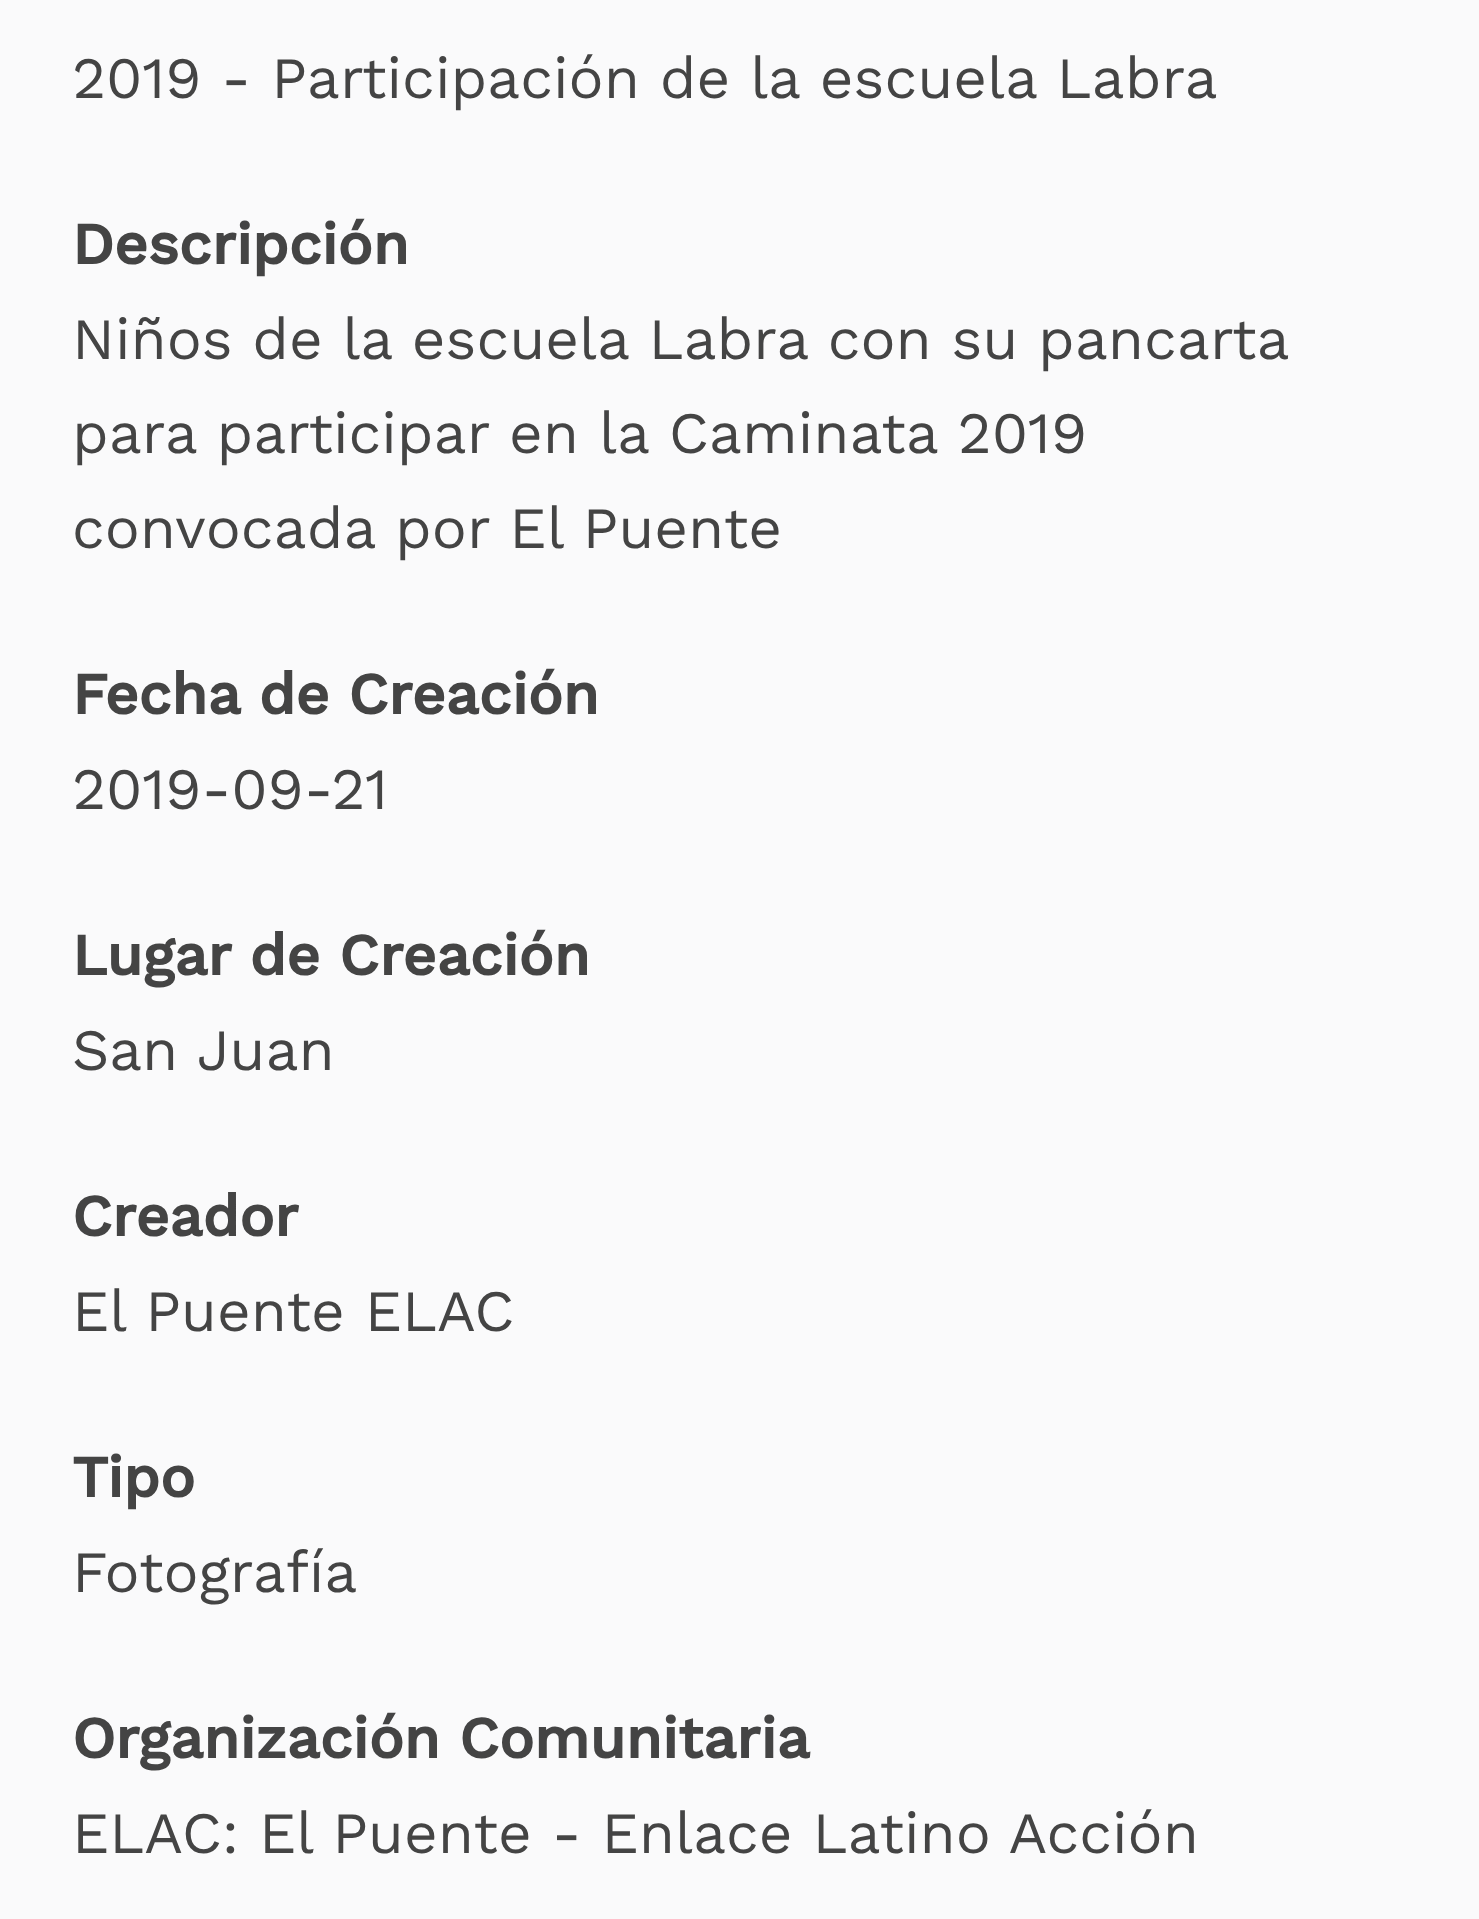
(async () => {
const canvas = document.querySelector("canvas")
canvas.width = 1479
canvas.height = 1919
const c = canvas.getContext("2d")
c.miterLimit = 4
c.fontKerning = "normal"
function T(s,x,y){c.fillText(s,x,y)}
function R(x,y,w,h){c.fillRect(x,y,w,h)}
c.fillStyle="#fafafb"
R(0,0,1479,1919)
c.font="58.5px Work Sans"
c.fillStyle="#444"
T("2019 - Participación de la escuela Labra",72,98)
c.font="bold 58.5px Work Sans"
T("Descripción",72,264)
c.wordSpacing="-0.25px"
c.font="58.5px Work Sans"
T("Niños de la escuela Labra con su pancarta",72,359)
c.wordSpacing="0px"
T("para participar en la Caminata 2019",72,453)
T("convocada por El Puente",72,548)
c.font="bold 58.5px Work Sans"
T("Fecha de Creación",72,714)
c.font="58.5px Work Sans"
T("2019-09-21",72,809)
c.font="bold 58.5px Work Sans"
T("Lugar de Creación",72,975)
c.font="58.5px Work Sans"
T("San Juan",72,1070)
c.font="bold 58.5px Work Sans"
T("Creador",72,1236)
c.font="58.5px Work Sans"
T("El Puente ELAC",72,1331)
c.font="bold 58.5px Work Sans"
T("Tipo",72,1497)
c.font="58.5px Work Sans"
T("Fotografía",72,1592)
c.font="bold 58.5px Work Sans"
T("Organización Comunitaria",72,1758)
c.font="58.5px Work Sans"
T("ELAC: El Puente - Enlace Latino Acción",72,1853)
})()
